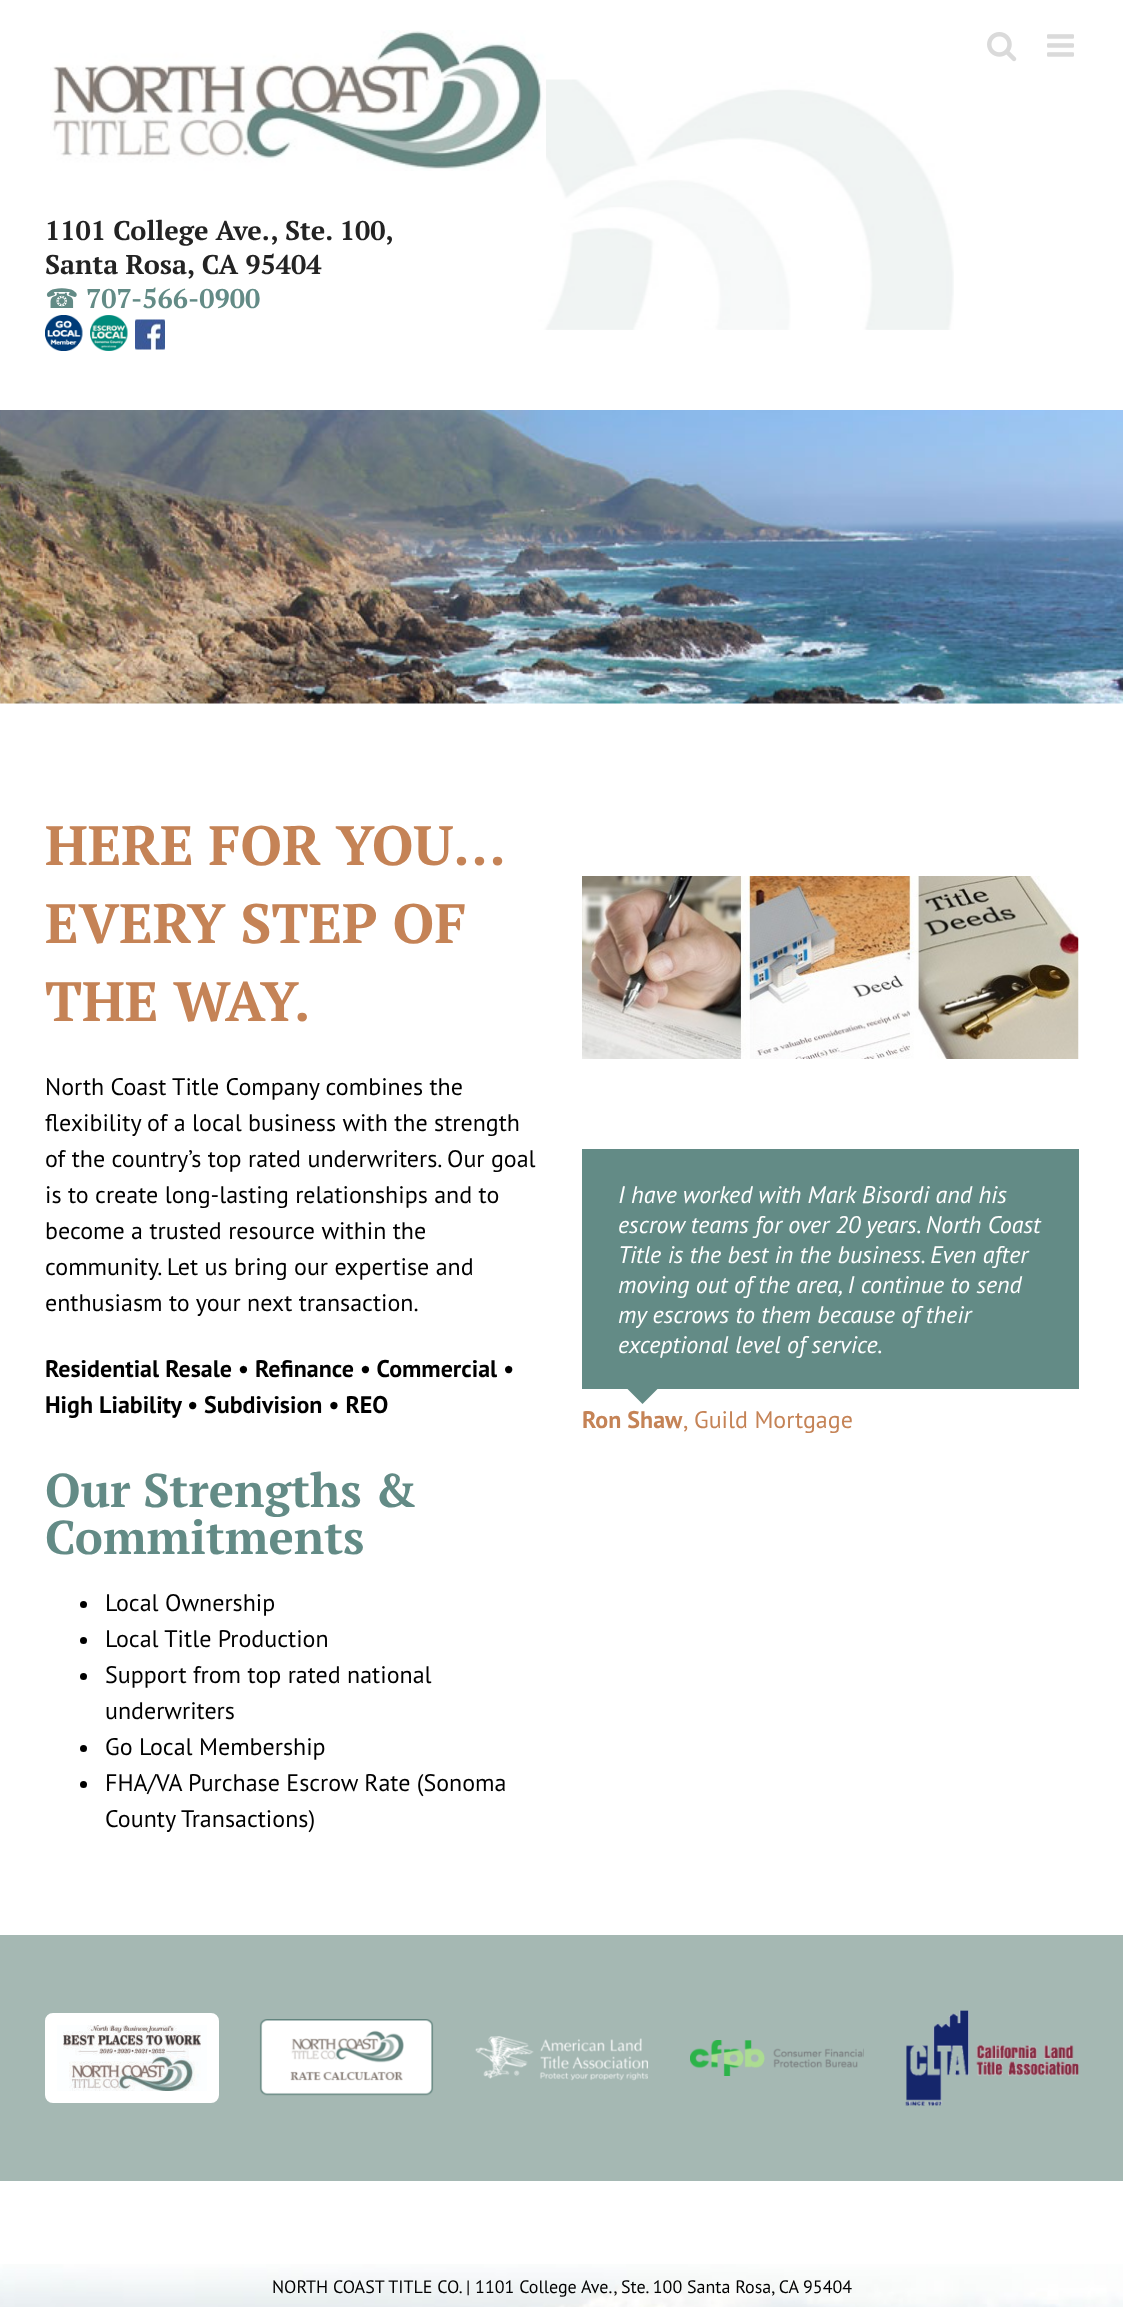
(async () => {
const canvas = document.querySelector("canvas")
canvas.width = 1123
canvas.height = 2307
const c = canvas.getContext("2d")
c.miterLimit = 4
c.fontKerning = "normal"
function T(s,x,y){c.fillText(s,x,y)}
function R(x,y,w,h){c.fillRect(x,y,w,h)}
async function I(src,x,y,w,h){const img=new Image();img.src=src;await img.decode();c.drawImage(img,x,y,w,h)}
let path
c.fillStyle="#fff"
R(0,0,1123,2307)
await I("1.png",314,79,640,251)
await I("2.png",987,32,30,30)
await I("3.png",1047,34,27,23)
await I("4.png",50,30,496,141)
c.font="bold 27px PT Serif"
c.fillStyle="#232323"
T("1101 College Ave., Ste. 100,",45,240)
T("Santa Rosa, CA 95404",45,274)
c.font="27px DejaVu Sans"
c.fillStyle="#638b86"
T("☎",45,308)
c.font="bold 27px PT Serif"
T("707-566-0900",86,308)
await I("5.png",45,315,38,36)
await I("6.png",90,315,38,36)
await I("7.png",135,319,30,31)
await I("8.png",0,410,1123,294)
c.font="bold 55.5px PT Serif"
c.fillStyle="#c58356"
T("HERE FOR YOU…",45,865)
T("EVERY STEP OF",45,943)
T("THE WAY.",45,1021)
c.font="24px PT Sans"
c.fillStyle="#000"
T("North Coast Title Company combines the",45,1095)
T("flexibility of a local business with the strength",45,1131)
T("of the country’s top rated underwriters. Our goal",45,1167)
T("is to create long-lasting relationships and to",45,1203)
T("become a trusted resource within the",45,1239)
T("community. Let us bring our expertise and",45,1275)
T("enthusiasm to your next transaction.",45,1311)
c.font="bold 24px PT Sans"
T("Residential Resale • Refinance • Commercial •",45,1377)
T("High Liability • Subdivision • REO",45,1413)
c.font="bold 47.25px PT Serif"
c.fillStyle="#638b86"
T("Our Strengths &",45,1507)
T("Commitments",45,1554)
c.fillStyle="#000"
c.beginPath()
c.arc(83.5,1604.5,3.5,0,7)
c.fill()
c.font="24px PT Sans"
T("Local Ownership",105,1611)
c.beginPath()
c.arc(83.5,1640.5,3.5,0,7)
c.fill()
T("Local Title Production",105,1647)
c.beginPath()
c.arc(83.5,1676.5,3.5,0,7)
c.fill()
T("Support from top rated national",105,1683)
T("underwriters",105,1719)
c.beginPath()
c.arc(83.5,1748.5,3.5,0,7)
c.fill()
T("Go Local Membership",105,1755)
c.beginPath()
c.arc(83.5,1784.5,3.5,0,7)
c.fill()
T("FHA/VA Purchase Escrow Rate (Sonoma",105,1791)
T("County Transactions)",105,1827)
await I("9.png",582,876,497,183)
c.fillStyle="#638b86"
R(582,1149,497,240)
c.font="italic 24px PT Sans"
c.fillStyle="#fff"
T("I have worked with Mark Bisordi and his",618,1203)
T("escrow teams for over 20 years. North Coast",618,1233)
T("Title is the best in the business. Even after",618,1263)
T("moving out of the area, I continue to send",618,1293)
T("my escrows to them because of their",618,1323)
T("exceptional level of service.",618,1353)
c.fillStyle="#638b86"
path = new Path2D("M642.5 1404l-15-15h30z")
c.fill(path)
c.font="bold 24px PT Sans"
c.fillStyle="#c58356"
T("Ron Shaw",582,1428)
c.font="24px PT Sans"
T(",",683,1428)
T("Guild Mortgage",694,1428)
c.fillStyle="#a5b8b3"
R(0,1935,1123,246)
c.beginPath()
c.roundRect(51,2019,162,78,2)
c.strokeStyle="#fff"
c.lineWidth=12
c.stroke()
await I("10.png",57,2025,150,66)
await I("11.png",259,2019,175,77)
await I("12.png",475,2036,173,45)
await I("13.png",690,2040,174,36)
await I("14.png",905,2010,174,96)
await I("15.png",0,2264,1123,43)
c.font="18px PT Sans"
c.fillStyle="#000"
T("NORTH COAST TITLE CO. | 1101 College Ave., Ste. 100 Santa Rosa, CA 95404",272,2293)
})()
